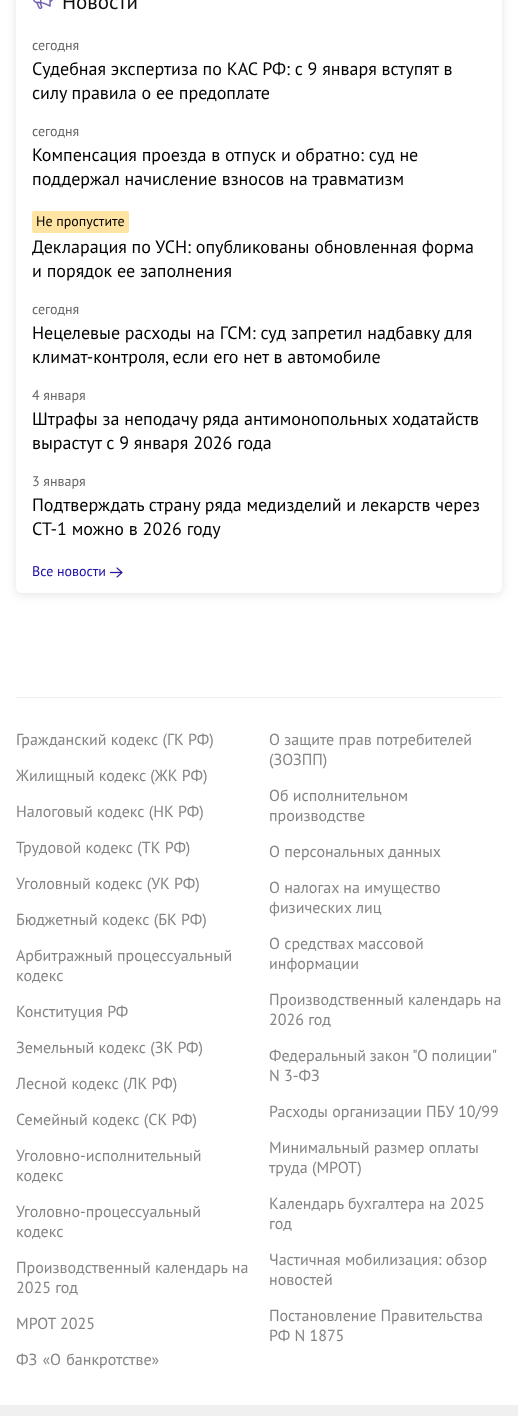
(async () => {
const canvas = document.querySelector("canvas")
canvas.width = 518
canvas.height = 1416
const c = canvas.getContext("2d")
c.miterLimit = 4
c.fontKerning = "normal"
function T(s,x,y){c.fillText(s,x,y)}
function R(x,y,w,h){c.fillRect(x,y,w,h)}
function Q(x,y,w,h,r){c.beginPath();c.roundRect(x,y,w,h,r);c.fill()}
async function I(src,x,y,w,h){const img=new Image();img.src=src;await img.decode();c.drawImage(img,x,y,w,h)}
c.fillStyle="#fff"
R(0,0,518,1416)
c.fillStyle="#28272a1f"
c.filter="blur(5px)"
c.beginPath()
c.roundRect(16,-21,486,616,6)
c.fill()
c.filter="none"
c.fillStyle="#fff"
Q(16,-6,486,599,6)
await I("1.png",33,0,20,10)
c.font="21px PT Sans"
c.fillStyle="#0e0e0e"
T("Новости",62,9)
c.font="14px PT Sans"
c.fillStyle="#666"
T("сегодня",32,50)
c.font="18px PT Sans"
c.fillStyle="#000"
T("Судебная экспертиза по КАС РФ: с 9 января вступят в",32,75)
T("силу правила о ее предоплате",32,99)
c.font="14px PT Sans"
c.fillStyle="#666"
T("сегодня",32,136)
c.font="18px PT Sans"
c.fillStyle="#000"
T("Компенсация проезда в отпуск и обратно: суд не",32,161)
T("поддержал начисление взносов на травматизм",32,185)
c.fillStyle="#ffe4a3"
Q(32,211,97,22,2)
c.font="14px PT Sans"
c.fillStyle="#000"
T("Не пропустите",36,226)
c.font="18px PT Sans"
T("Декларация по УСН: опубликованы обновленная форма",32,253)
T("и порядок ее заполнения",32,277)
c.font="14px PT Sans"
c.fillStyle="#666"
T("сегодня",32,314)
c.font="18px PT Sans"
c.fillStyle="#000"
T("Нецелевые расходы на ГСМ: суд запретил надбавку для",32,339)
T("климат-контроля, если его нет в автомобиле",32,363)
c.font="14px PT Sans"
c.fillStyle="#666"
T("4 января",32,400)
c.font="18px PT Sans"
c.fillStyle="#000"
T("Штрафы за неподачу ряда антимонопольных ходатайств",32,425)
T("вырастут с 9 января 2026 года",32,449)
c.font="14px PT Sans"
c.fillStyle="#666"
T("3 января",32,486)
c.font="18px PT Sans"
c.fillStyle="#000"
T("Подтверждать страну ряда медизделий и лекарств через",32,511)
T("СТ-1 можно в 2026 году",32,535)
c.font="14px PT Sans"
c.fillStyle="#1a0dab"
T("Все новости",32,576)
await I("2.png",109,567,14,11)
c.fillStyle="#f1f1f1"
R(16,697,486,1)
c.font="16px PT Sans"
c.fillStyle="#848484"
T("Гражданский кодекс (ГК РФ)",16,745)
T("О защите прав потребителей",269,745)
T("(ЗОЗПП)",269,765)
T("Жилищный кодекс (ЖК РФ)",16,781)
T("Налоговый кодекс (НК РФ)",16,817)
T("Об исполнительном",269,801)
T("производстве",269,821)
T("Трудовой кодекс (ТК РФ)",16,853)
T("О персональных данных",269,857)
T("Уголовный кодекс (УК РФ)",16,889)
T("О налогах на имущество",269,893)
T("физических лиц",269,913)
T("Бюджетный кодекс (БК РФ)",16,925)
T("Арбитражный процессуальный",16,961)
T("кодекс",16,981)
T("О средствах массовой",269,949)
T("информации",269,969)
T("Конституция РФ",16,1017)
T("Производственный календарь на",269,1005)
T("2026 год",269,1025)
T("Земельный кодекс (ЗК РФ)",16,1053)
c.wordSpacing="-0.5px"
T("Федеральный закон \"О полиции\"",269,1061)
c.wordSpacing="0px"
T("N 3-ФЗ",269,1081)
T("Лесной кодекс (ЛК РФ)",16,1089)
T("Семейный кодекс (СК РФ)",16,1125)
T("Расходы организации ПБУ 10/99",269,1117)
T("Уголовно-исполнительный",16,1161)
T("кодекс",16,1181)
T("Минимальный размер оплаты",269,1153)
T("труда (МРОТ)",269,1173)
T("Уголовно-процессуальный",16,1217)
T("кодекс",16,1237)
T("Календарь бухгалтера на 2025",269,1209)
T("год",269,1229)
T("Производственный календарь на",16,1273)
T("2025 год",16,1293)
T("Частичная мобилизация: обзор",269,1265)
T("новостей",269,1285)
T("МРОТ 2025",16,1329)
T("Постановление Правительства",269,1321)
T("РФ N 1875",269,1341)
c.wordSpacing="1px"
T("ФЗ «О банкротстве»",16,1365)
c.fillStyle="#f0f0f0"
R(0,1405,518,11)
})()
